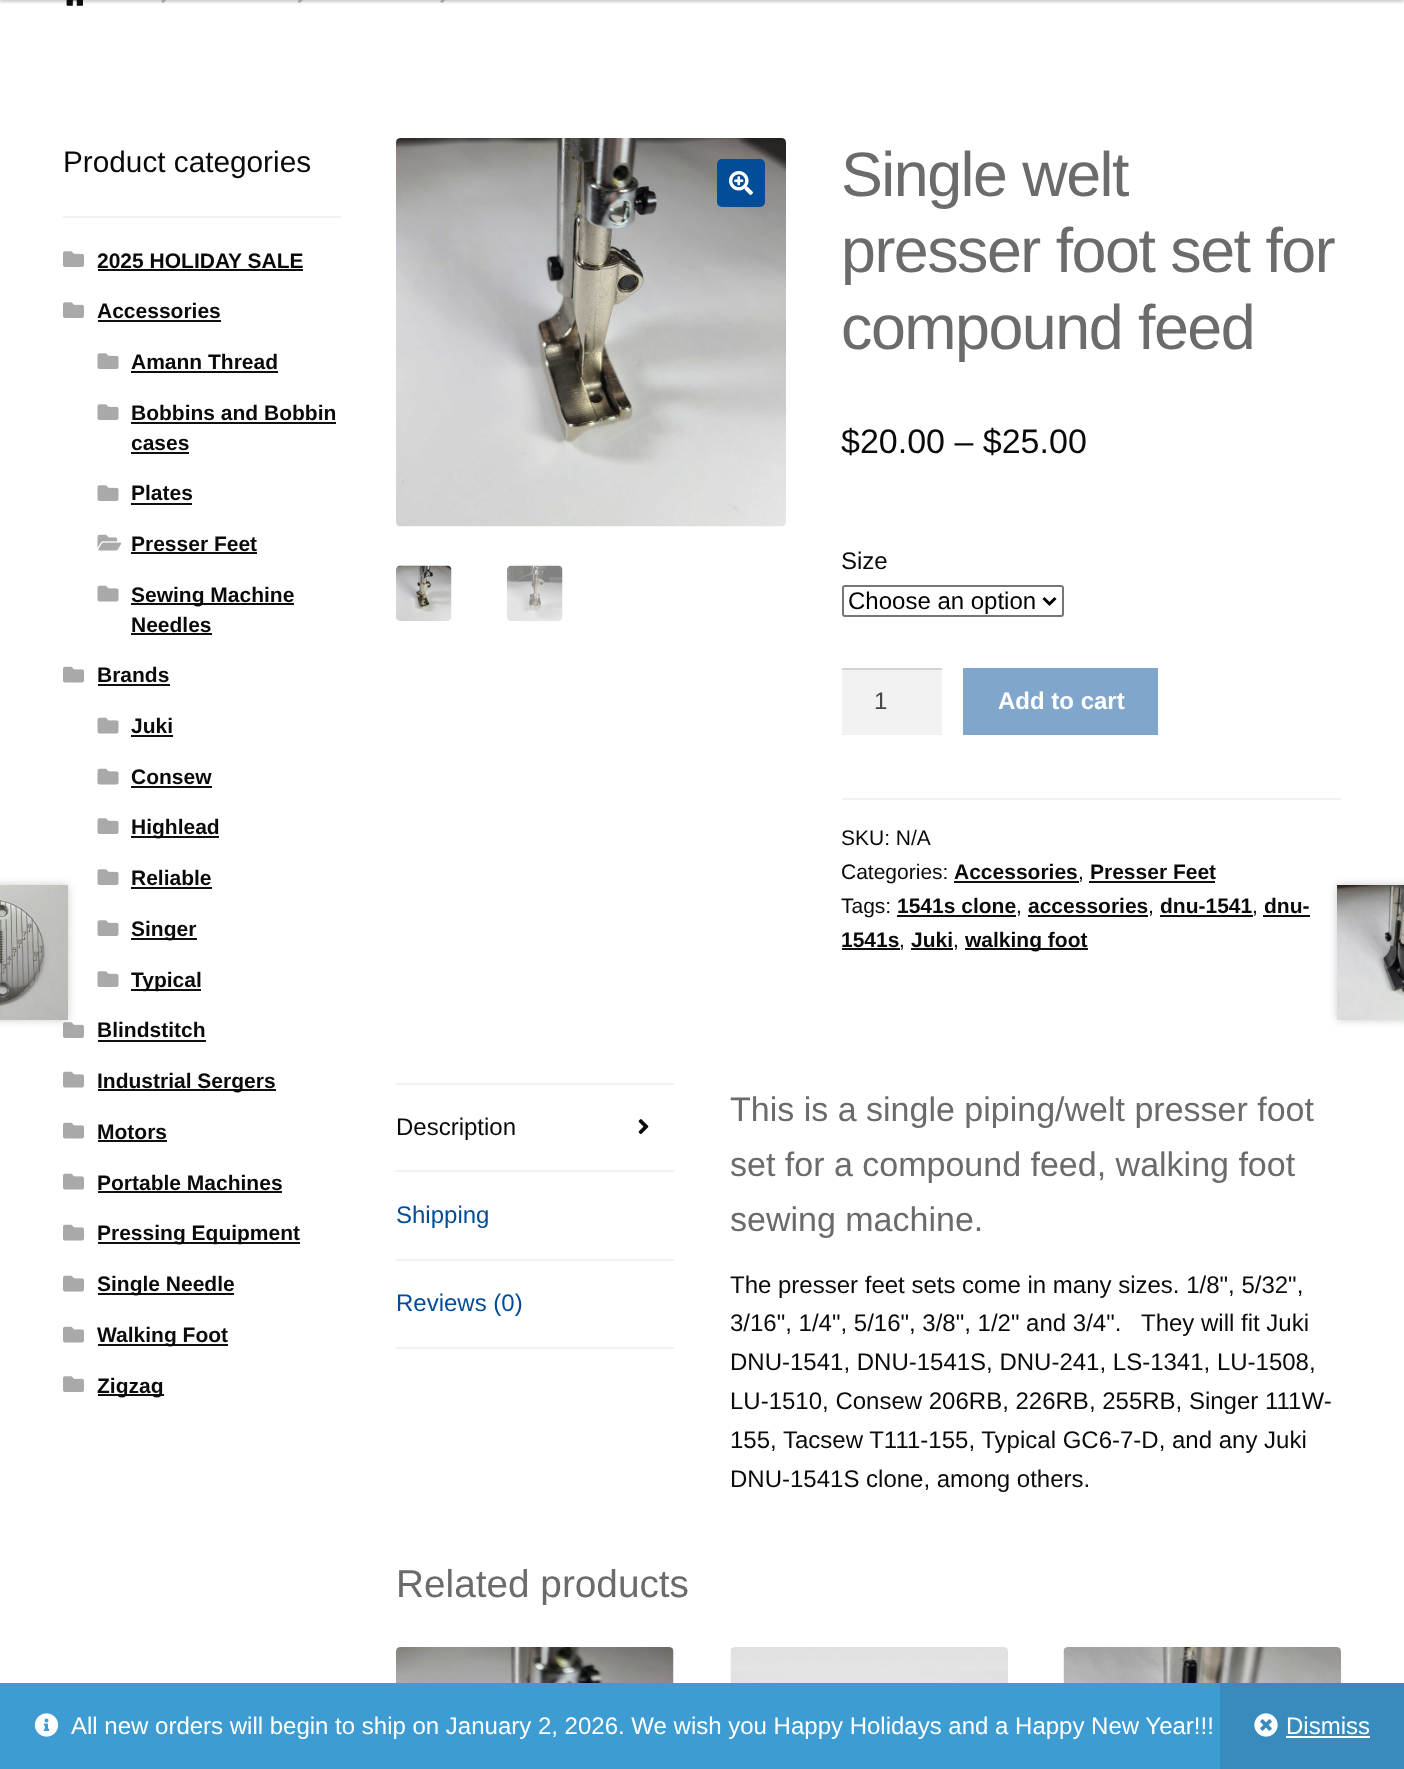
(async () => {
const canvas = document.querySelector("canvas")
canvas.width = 1404
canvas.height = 1769
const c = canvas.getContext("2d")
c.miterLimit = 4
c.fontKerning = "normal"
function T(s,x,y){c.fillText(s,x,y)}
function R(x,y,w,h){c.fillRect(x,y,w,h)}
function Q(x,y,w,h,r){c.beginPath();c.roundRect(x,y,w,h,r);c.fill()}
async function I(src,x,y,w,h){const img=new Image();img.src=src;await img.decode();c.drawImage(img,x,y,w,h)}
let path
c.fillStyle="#fff"
R(0,0,1404,1769)
await I("1.png",66,0,17,6)
await I("2.png",161,0,5,3)
await I("3.png",297,0,6,3)
await I("2.png",440,0,5,3)
c.fillStyle="#00000033"
c.filter="blur(1.5px)"
c.beginPath()
c.rect(0,-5,1404,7)
c.fill()
c.filter="none"
c.fillStyle="#f2f2f2"
R(63,216,278,2)
c.font="29.75px Liberation Sans"
c.fillStyle="#0a0a0a"
T("Product categories",63,172)
await I("4.png",63,251,21,16)
c.font="bold 21px Liberation Sans"
T("2025 HOLIDAY SALE",97,268)
c.fillStyle="#0f0f0f"
R(98,269,205,2)
await I("4.png",63,302,21,16)
c.fillStyle="#0a0a0a"
T("Accessories",97,318)
c.fillStyle="#0f0f0f"
R(98,320,123,2)
await I("5.png",97,353,22,16)
c.fillStyle="#0a0a0a"
T("Amann Thread",131,369)
c.fillStyle="#0f0f0f"
R(131,371,147,2)
await I("5.png",97,404,22,16)
c.fillStyle="#0a0a0a"
T("Bobbins and Bobbin",131,420)
c.fillStyle="#0f0f0f"
R(131,422,205,2)
c.fillStyle="#0a0a0a"
T("cases",131,450)
c.fillStyle="#0f0f0f"
R(131,452,58,2)
await I("5.png",97,485,22,16)
c.fillStyle="#0a0a0a"
T("Plates",131,500)
c.fillStyle="#0f0f0f"
R(131,503,61,2)
await I("6.png",97,534,25,17)
c.fillStyle="#0a0a0a"
T("Presser Feet",131,551)
c.fillStyle="#0f0f0f"
R(131,552,126,2)
await I("7.png",97,585,22,17)
R(131,603,163,2)
c.fillStyle="#0a0a0a"
T("Sewing Machine",131,602)
T("Needles",131,632)
c.fillStyle="#0f0f0f"
R(131,633,81,2)
await I("8.png",63,666,21,17)
c.fillStyle="#0a0a0a"
T("Brands",97,682)
c.fillStyle="#0f0f0f"
R(98,684,72,2)
await I("7.png",97,717,22,17)
c.fillStyle="#0a0a0a"
T("Juki",131,733)
c.fillStyle="#0f0f0f"
R(131,735,42,2)
await I("7.png",97,768,22,17)
c.fillStyle="#0a0a0a"
T("Consew",131,784)
c.fillStyle="#0f0f0f"
R(131,786,81,2)
await I("5.png",97,818,22,16)
R(131,836,88,2)
c.fillStyle="#0a0a0a"
T("Highlead",131,834)
await I("5.png",97,869,22,16)
T("Reliable",131,885)
c.fillStyle="#0f0f0f"
R(131,887,81,2)
await I("5.png",97,920,22,16)
R(131,938,66,2)
c.fillStyle="#0a0a0a"
T("Singer",131,936)
await I("5.png",97,971,22,16)
c.fillStyle="#0f0f0f"
R(131,989,70,2)
c.fillStyle="#0a0a0a"
T("Typical",131,987)
await I("4.png",63,1022,21,16)
T("Blindstitch",97,1037)
c.fillStyle="#0f0f0f"
R(98,1040,108,2)
await I("8.png",63,1071,21,17)
R(98,1089,178,2)
c.fillStyle="#0a0a0a"
T("Industrial Sergers",97,1088)
await I("8.png",63,1122,21,17)
T("Motors",97,1139)
c.fillStyle="#0f0f0f"
R(98,1140,69,2)
await I("8.png",63,1173,21,17)
c.fillStyle="#0a0a0a"
T("Portable Machines",97,1190)
c.fillStyle="#0f0f0f"
R(98,1191,184,2)
await I("8.png",63,1224,21,17)
R(98,1242,202,2)
c.fillStyle="#0a0a0a"
T("Pressing Equipment",97,1240)
await I("8.png",63,1275,21,17)
c.fillStyle="#0f0f0f"
R(98,1293,136,2)
c.fillStyle="#0a0a0a"
T("Single Needle",97,1291)
await I("8.png",63,1326,21,17)
c.fillStyle="#0f0f0f"
R(98,1344,130,2)
c.fillStyle="#0a0a0a"
T("Walking Foot",97,1342)
await I("4.png",63,1376,21,16)
c.fillStyle="#0f0f0f"
R(98,1394,66,2)
c.fillStyle="#0a0a0a"
T("Zigzag",97,1393)
await I("9.png",396,138,390,389)
c.fillStyle="#024c98"
Q(717,159,48,48,5)
await I("10.png",729,171,24,24)
await I("11.png",396,565,56,56)
await I("12.png",507,565,56,56)
c.letterSpacing="-1.5px"
c.font="62.75px Liberation Sans"
c.fillStyle="#6b6b6b"
T("Single welt",841,196)
T("presser foot set for",841,272)
T("compound feed",841,349)
c.letterSpacing="0px"
c.font="34px Liberation Sans"
c.fillStyle="#0a0a0a"
T("$20.00 – $25.00",841,453)
c.font="24px Liberation Sans"
T("Size",841,569)
c.beginPath()
c.roundRect(843,586,220,30,2)
c.strokeStyle="#767676"
c.lineWidth=2
c.stroke()
path = new Path2D("M1043.5 598l6 6l6-6")
c.strokeStyle="#000"
c.lineWidth=3
c.stroke(path)
c.fillStyle="#000"
T("Choose an option",848,609)
c.fillStyle="#f2f2f2"
R(842,670,100,65)
c.fillStyle="#d4d4d4"
R(842,668,100,2)
c.fillStyle="#43454b"
T("1",874,709)
c.fillStyle="#81a6cc"
R(963,668,195,67)
c.font="bold 24px Liberation Sans"
c.fillStyle="#fff"
T("Add to cart",998,709)
c.fillStyle="#f2f2f2"
R(842,798,499,2)
c.font="21px Liberation Sans"
c.fillStyle="#0a0a0a"
T("SKU: N/A",841,845)
T("Categories:",841,879)
c.font="bold 21px Liberation Sans"
T("Accessories",954,879)
c.fillStyle="#0f0f0f"
R(954,881,125,2)
c.font="21px Liberation Sans"
c.fillStyle="#0a0a0a"
T(",",1078,879)
c.font="bold 21px Liberation Sans"
T("Presser Feet",1090,879)
c.fillStyle="#0f0f0f"
R(1089,881,126,2)
c.font="21px Liberation Sans"
c.fillStyle="#0a0a0a"
T("Tags:",841,913)
c.font="bold 21px Liberation Sans"
T("1541s clone",897,913)
c.fillStyle="#0f0f0f"
R(897,915,119,2)
c.font="21px Liberation Sans"
c.fillStyle="#0a0a0a"
T(",",1016,913)
c.font="bold 21px Liberation Sans"
T("accessories",1028,913)
c.fillStyle="#0f0f0f"
R(1028,915,120,2)
c.font="21px Liberation Sans"
c.fillStyle="#0a0a0a"
T(",",1148,913)
c.font="bold 21px Liberation Sans"
T("dnu-1541",1160,913)
c.fillStyle="#0f0f0f"
R(1160,915,93,2)
c.font="21px Liberation Sans"
c.fillStyle="#0a0a0a"
T(",",1252,913)
c.font="bold 21px Liberation Sans"
T("dnu-",1264,913)
c.fillStyle="#0f0f0f"
R(1263,915,47,2)
c.fillStyle="#0a0a0a"
T("1541s",841,947)
c.fillStyle="#0f0f0f"
R(842,948,58,2)
c.font="21px Liberation Sans"
c.fillStyle="#0a0a0a"
T(",",899,947)
c.font="bold 21px Liberation Sans"
T("Juki",911,947)
c.fillStyle="#0f0f0f"
R(911,948,42,2)
c.font="21px Liberation Sans"
c.fillStyle="#0a0a0a"
T(",",953,947)
c.fillStyle="#0f0f0f"
R(965,948,123,2)
c.font="bold 21px Liberation Sans"
c.fillStyle="#0a0a0a"
T("walking foot",965,947)
c.fillStyle="#00000033"
c.filter="blur(4px)"
c.beginPath()
c.rect(-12,885,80,135)
c.fill()
c.filter="none"
await I("13.png",0,885,68,135)
c.filter="blur(4px)"
c.beginPath()
c.rect(1337,885,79,135)
c.fill()
c.filter="none"
await I("14.png",1337,885,67,135)
c.fillStyle="#f2f2f2"
R(396,1083,278,2)
R(396,1170,278,2)
c.font="24px Liberation Sans"
c.fillStyle="#0a0a0a"
T("Description",396,1135)
await I("15.png",638,1119,11,16)
c.fillStyle="#f2f2f2"
R(396,1259,278,2)
c.fillStyle="#024c98"
T("Shipping",396,1223)
c.fillStyle="#f2f2f2"
R(396,1347,278,2)
c.fillStyle="#024c98"
T("Reviews (0)",396,1311)
c.font="34px Liberation Sans"
c.fillStyle="#6b6b6b"
T("This is a single piping/welt presser foot",730,1121)
T("set for a compound feed, walking foot",730,1176)
T("sewing machine.",730,1231)
c.font="24px Liberation Sans"
c.fillStyle="#0a0a0a"
T("The presser feet sets come in many sizes. 1/8\", 5/32\",",730,1293)
T("3/16\", 1/4\", 5/16\", 3/8\", 1/2\" and 3/4\".",730,1331)
T("They will fit Juki",1141,1331)
T("DNU-1541, DNU-1541S, DNU-241, LS-1341, LU-1508,",730,1370)
T("LU-1510, Consew 206RB, 226RB, 255RB, Singer 111W-",730,1409)
T("155, Tacsew T111-155, Typical GC6-7-D, and any Juki",730,1448)
T("DNU-1541S clone, among others.",730,1487)
c.font="38.75px Liberation Sans"
c.fillStyle="#6b6b6b"
T("Related products",396,1597)
await I("16.png",396,1647,278,36)
await I("17.png",730,1647,278,36)
await I("18.png",1063,1647,278,36)
c.fillStyle="#3d9cd2"
R(0,1683,1220,86)
await I("19.png",34,1713,25,24)
c.font="24px Liberation Sans"
c.fillStyle="#fff"
T("All new orders will begin to ship on January 2, 2026. We wish you Happy Holidays and a Happy New Year!!!",71,1734)
c.fillStyle="#378cbd"
R(1220,1683,184,86)
await I("20.png",1254,1713,24,24)
c.fillStyle="#fff"
T("Dismiss",1286,1734)
R(1286,1736,84,2)
})()
